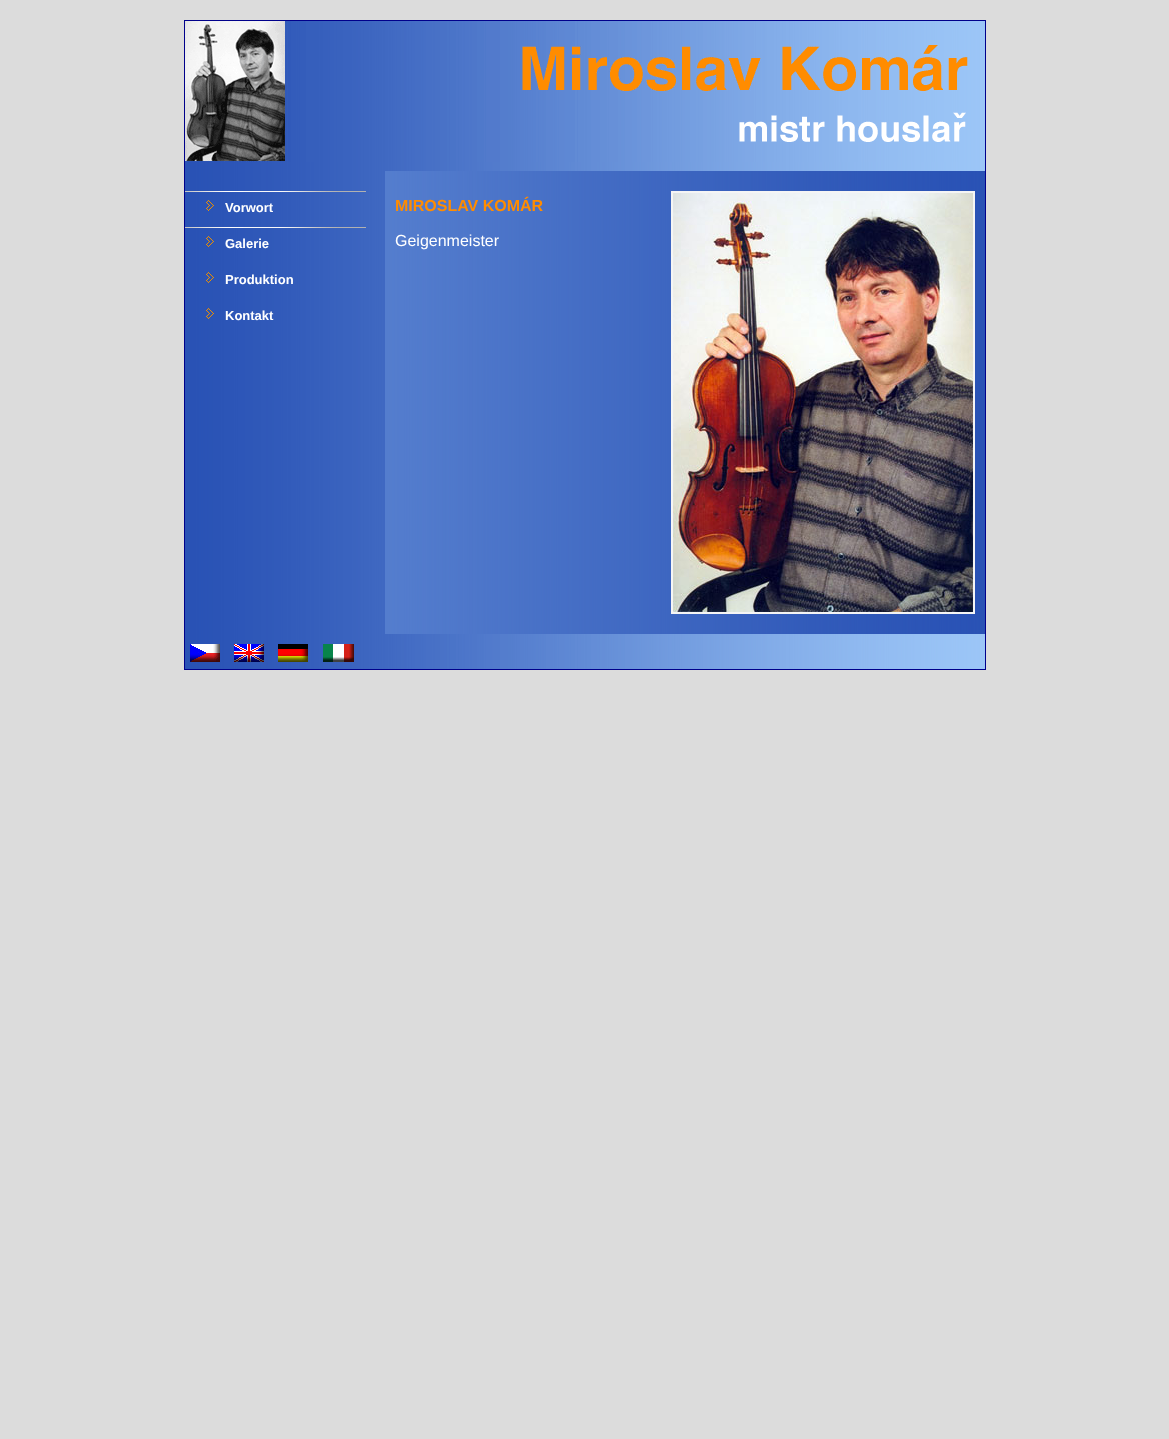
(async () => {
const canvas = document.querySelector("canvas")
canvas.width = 1169
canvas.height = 1439
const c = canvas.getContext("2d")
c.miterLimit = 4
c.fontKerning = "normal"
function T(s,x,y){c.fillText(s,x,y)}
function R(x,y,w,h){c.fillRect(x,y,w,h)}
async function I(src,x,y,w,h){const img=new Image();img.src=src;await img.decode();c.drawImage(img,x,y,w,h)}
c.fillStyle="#dcdcdc"
R(0,0,1169,1439)
await I("1.png",185,21,800,648)
c.strokeStyle="#00008b"
c.strokeRect(184.5,20.5,801,649)
await I("2.png",185,21,783,141)
await I("3.png",185,191,181,1)
await I("4.png",206,200,8,11)
c.font="bold 13px Liberation Sans"
c.fillStyle="#fff"
T("Vorwort",225,212)
await I("3.png",185,227,181,1)
await I("4.png",206,236,8,11)
T("Galerie",225,248)
await I("4.png",206,272,8,11)
T("Produktion",225,284)
await I("4.png",206,308,8,11)
T("Kontakt",225,320)
await I("5.png",385,171,600,463)
c.font="bold 16px Liberation Sans"
c.fillStyle="#ff8c00"
T("MIROSLAV KOMÁR",395,211)
c.strokeStyle="#f5f5f5"
c.lineWidth=2
c.strokeRect(672,192,302,421)
await I("6.png",673,193,300,419)
c.font="16px Liberation Sans"
c.fillStyle="#fff"
T("Geigenmeister",395,246)
await I("7.png",190,644,30,18)
await I("8.png",234,644,30,18)
await I("9.png",278,644,30,18)
await I("10.png",323,644,31,18)
})()
